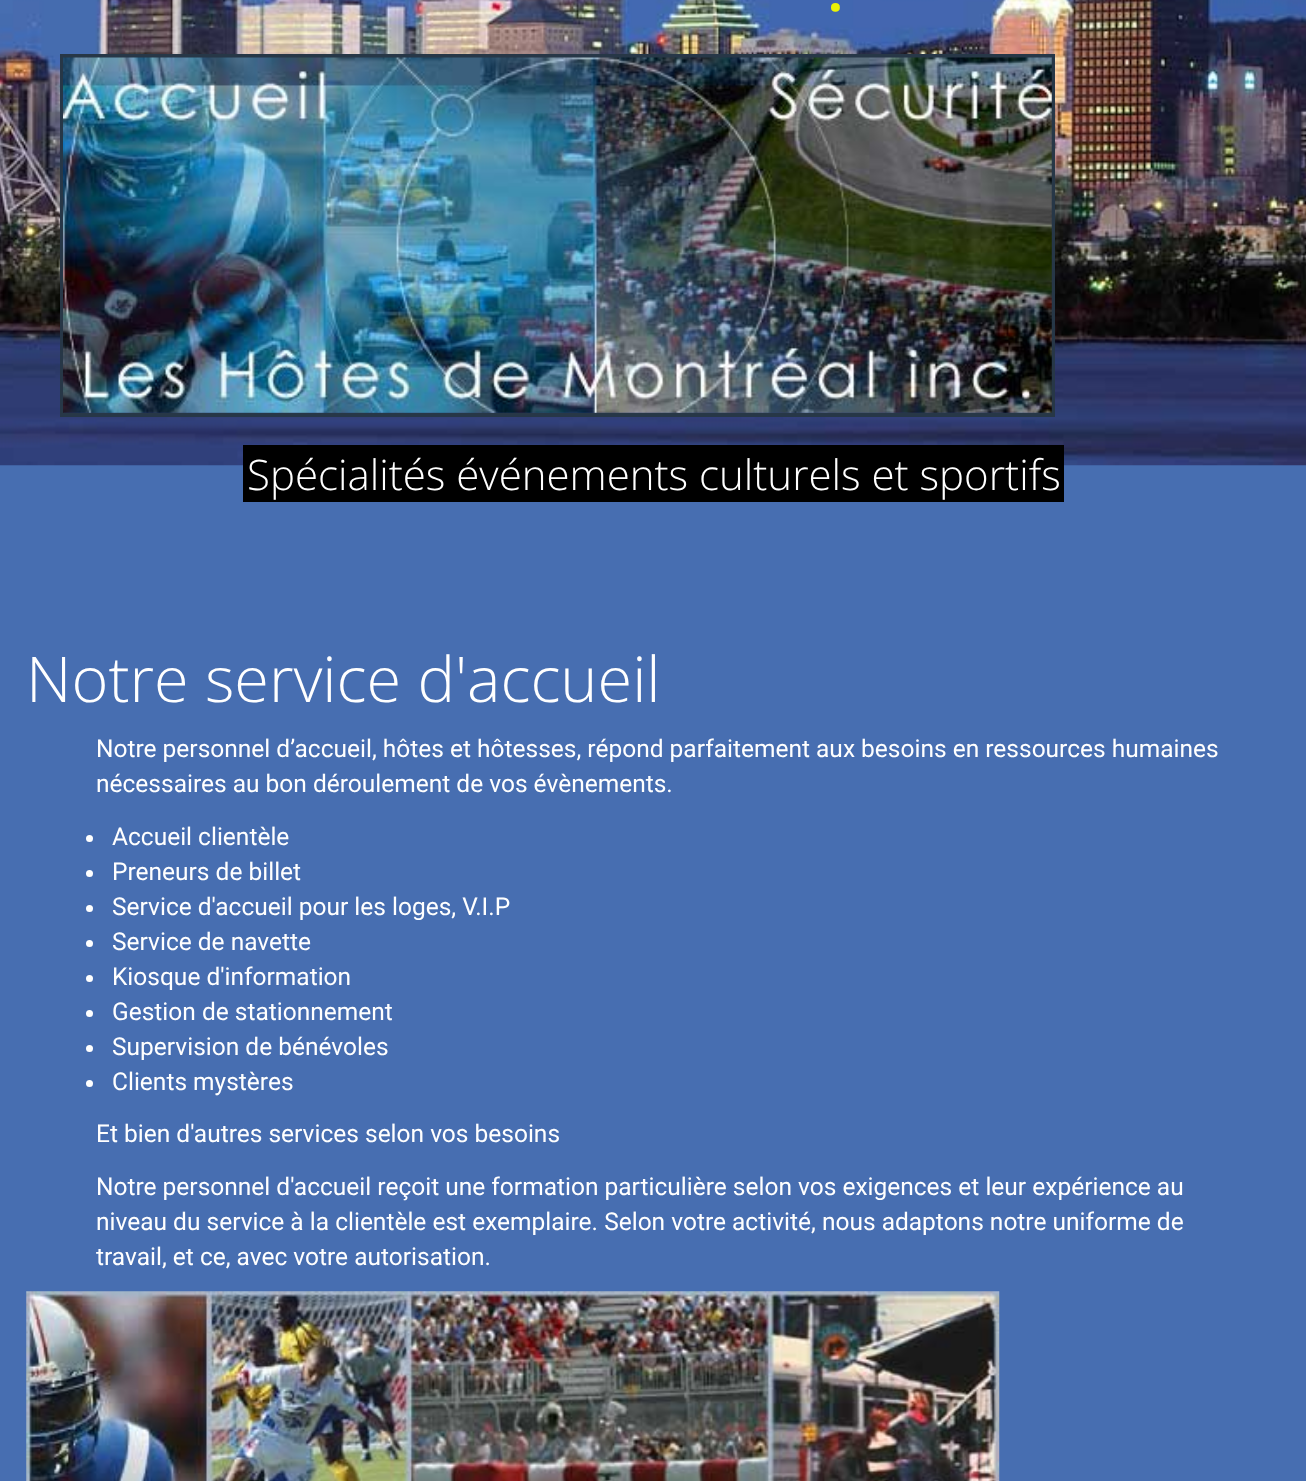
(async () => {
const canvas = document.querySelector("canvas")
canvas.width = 1306
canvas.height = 1481
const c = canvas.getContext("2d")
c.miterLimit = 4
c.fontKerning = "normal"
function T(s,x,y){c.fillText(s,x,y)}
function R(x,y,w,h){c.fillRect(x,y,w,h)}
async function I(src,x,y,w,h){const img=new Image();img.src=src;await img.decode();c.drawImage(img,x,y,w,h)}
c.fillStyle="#476eb1"
R(0,0,1306,1481)
await I("1.png",0,0,1306,466)
c.font="bold 52px Open Sans"
c.fillStyle="#eaf306"
T(".",828,11)
c.strokeStyle="#273747"
c.lineWidth=4
c.strokeRect(62,56,991,359)
await I("2.png",63,57,989,356)
c.fillStyle="#000"
R(243,445,821,57)
c.font="300 42px Open Sans"
c.fillStyle="#fff"
T("Spécialités événements culturels et sportifs",247,490)
c.font="300 63px Open Sans"
T("Notre service d'accueil",26,702)
c.font="24.5px Roboto"
T("Notre personnel d’accueil, hôtes et hôtesses, répond parfaitement aux besoins en ressources humaines",96,757)
T("nécessaires au bon déroulement de vos évènements.",96,792)
c.beginPath()
c.arc(89.5,838.5,3.5,0,7)
c.fill()
T("Accueil clientèle",112,845)
c.beginPath()
c.arc(89.5,873.5,3.5,0,7)
c.fill()
T("Preneurs de billet",112,880)
c.beginPath()
c.arc(89.5,908.5,3.5,0,7)
c.fill()
T("Service d'accueil pour les loges, V.I.P",112,915)
c.beginPath()
c.arc(89.5,943.5,3.5,0,7)
c.fill()
T("Service de navette",112,950)
c.beginPath()
c.arc(89.5,978.5,3.5,0,7)
c.fill()
T("Kiosque d'information",112,985)
c.beginPath()
c.arc(89.5,1013.5,3.5,0,7)
c.fill()
T("Gestion de stationnement",112,1020)
c.beginPath()
c.arc(89.5,1048.5,3.5,0,7)
c.fill()
T("Supervision de bénévoles",112,1055)
c.beginPath()
c.arc(89.5,1083.5,3.5,0,7)
c.fill()
T("Clients mystères",112,1090)
T("Et bien d'autres services selon vos besoins",96,1142)
T("Notre personnel d'accueil reçoit une formation particulière selon vos exigences et leur expérience au",96,1195)
T("niveau du service à la clientèle est exemplaire. Selon votre activité, nous adaptons notre uniforme de",96,1230)
T("travail, et ce, avec votre autorisation.",96,1265)
await I("3.png",26,1291,974,190)
})()
